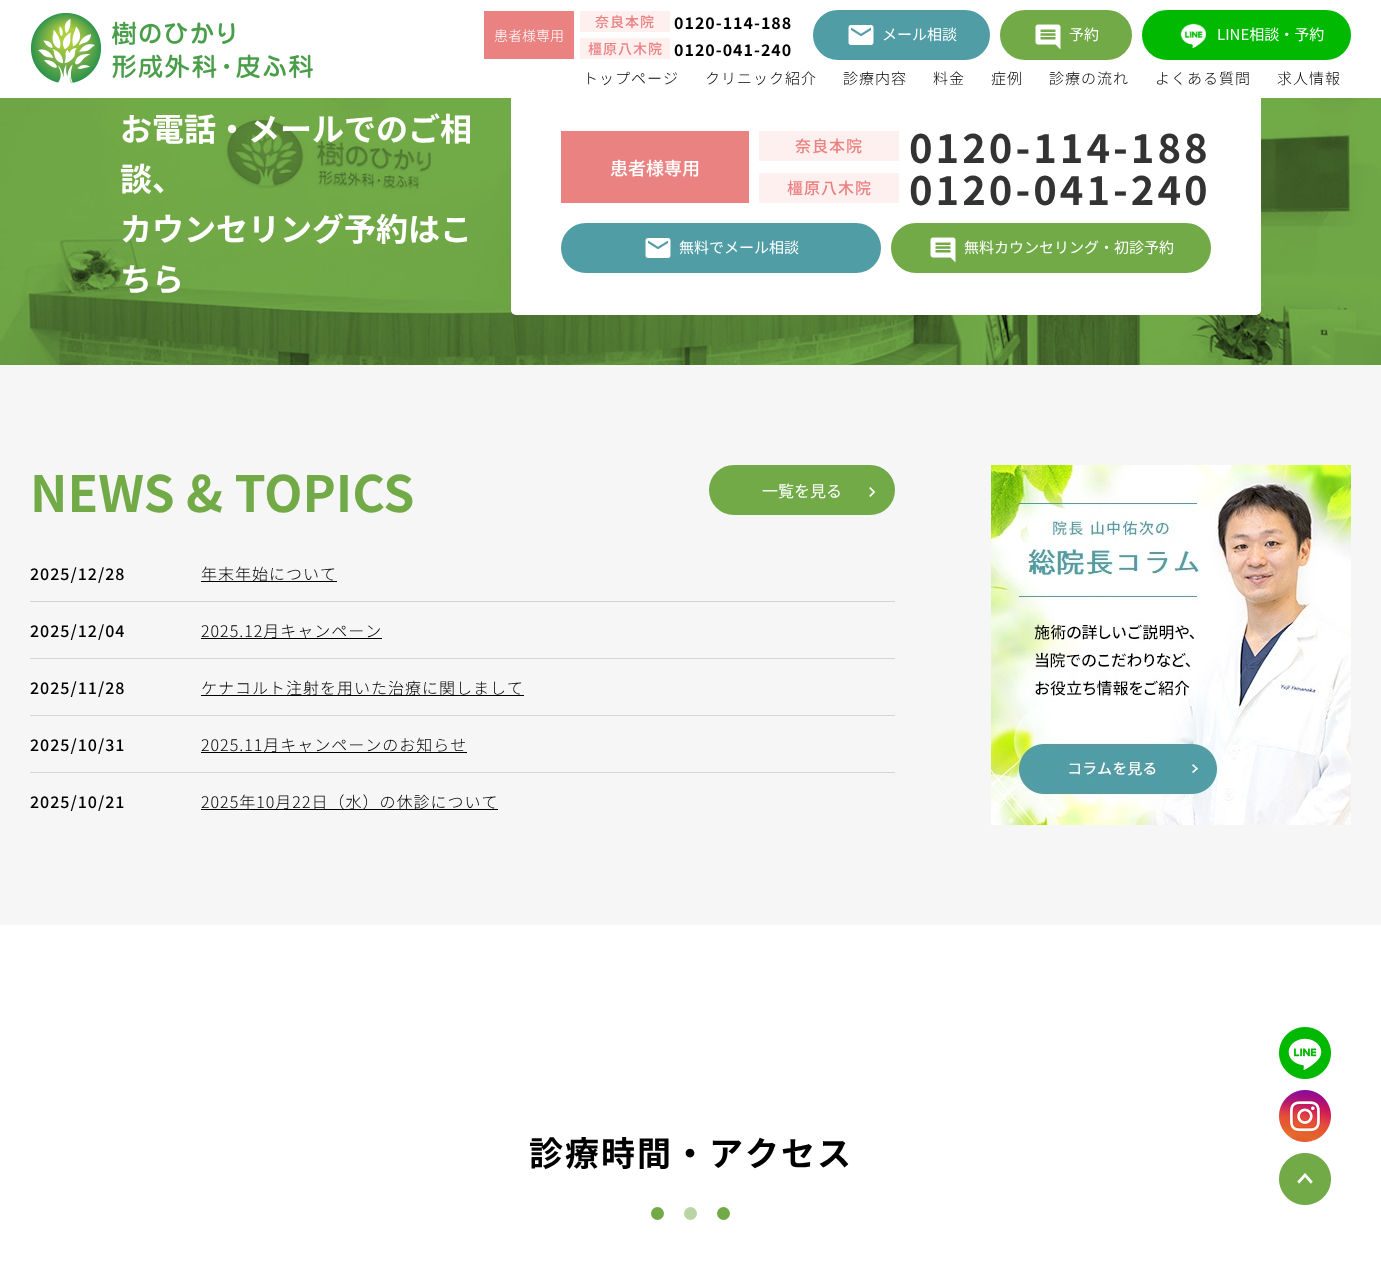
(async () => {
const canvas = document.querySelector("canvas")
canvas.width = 1381
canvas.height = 1266
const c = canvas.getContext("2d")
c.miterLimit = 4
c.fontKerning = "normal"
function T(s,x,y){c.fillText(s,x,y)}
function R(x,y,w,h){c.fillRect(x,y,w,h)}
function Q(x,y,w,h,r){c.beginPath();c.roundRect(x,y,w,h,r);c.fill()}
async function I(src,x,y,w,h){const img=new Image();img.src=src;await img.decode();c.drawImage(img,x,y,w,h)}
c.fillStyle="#fff"
R(0,0,1381,1266)
await I("1.png",31,13,282,70)
c.fillStyle="#eb8282"
R(484,11,90,48)
c.font="300 14px Noto Sans JP"
c.fillStyle="#fff"
T("患者様専用",494,41)
c.fillStyle="#fff0f0"
R(580,11,90,21)
c.letterSpacing="1px"
c.font="500 14px Noto Sans JP"
c.fillStyle="#eb8282"
T("奈良本院",595,27)
c.font="bold 16px Noto Sans JP"
c.fillStyle="#000"
T("0120-114-188",674,29)
c.fillStyle="#fff0f0"
R(580,38,90,21)
c.font="500 14px Noto Sans JP"
c.fillStyle="#eb8282"
T("橿原八木院",588,54)
c.font="bold 16px Noto Sans JP"
c.fillStyle="#000"
T("0120-041-240",674,56)
c.fillStyle="#519da6"
c.beginPath()
c.roundRect(814.5,11.5,174,47,23.5)
c.fill()
c.strokeStyle="#519da6"
c.lineWidth=3
c.stroke()
await I("2.png",848,25,26,20)
c.letterSpacing="0px"
c.font="15px Noto Sans JP"
c.fillStyle="#fff"
T("メール相談",882,40)
c.fillStyle="#71aa47"
c.beginPath()
c.roundRect(1001.5,11.5,129,47,23.5)
c.fill()
c.strokeStyle="#71aa47"
c.stroke()
await I("3.png",1035,24,26,26)
c.fillStyle="#fff"
T("予約",1069,40)
c.fillStyle="#00b900"
c.beginPath()
c.roundRect(1143.5,11.5,206,47,23.5)
c.fill()
c.strokeStyle="#00b900"
c.stroke()
await I("4.png",1180,23,26,25)
c.fillStyle="#fff"
T("LINE相談・予約",1217,40)
c.letterSpacing="1px"
c.font="300 15px Noto Sans JP"
c.fillStyle="#000"
T("トップページ",583,84)
T("クリニック紹介",705,84)
T("診療内容",843,84)
T("料金",933,84)
T("症例",991,84)
T("診療の流れ",1049,84)
T("よくある質問",1155,84)
T("求人情報",1277,84)
await I("5.png",0,98,1381,267)
c.letterSpacing="0px"
c.font="bold 32px Noto Sans JP"
c.fillStyle="#fff"
T("お電話・メールでのご相",120,141)
T("談、",120,191)
T("カウンセリング予約はこ",120,241)
T("ちら",120,291)
Q(511,89,750,226,5)
c.fillStyle="#eb8282"
R(561,131,188,72)
c.font="500 18px Noto Sans JP"
c.fillStyle="#fff"
T("患者様専用",610,175)
c.fillStyle="#fff0f0"
R(759,131,140,30)
c.letterSpacing="1px"
c.font="500 16px Noto Sans JP"
c.fillStyle="#eb8282"
T("奈良本院",795,152)
c.letterSpacing="3px"
c.font="bold 40px Noto Sans JP"
c.fillStyle="#333"
T("0120-114-188",909,163)
c.fillStyle="#fff0f0"
R(759,173,140,30)
c.letterSpacing="1px"
c.font="500 16px Noto Sans JP"
c.fillStyle="#eb8282"
T("橿原八木院",787,194)
c.letterSpacing="3px"
c.font="bold 40px Noto Sans JP"
c.fillStyle="#333"
T("0120-041-240",909,205)
c.fillStyle="#519da6"
c.beginPath()
c.roundRect(562.5,224.5,317,47,23.5)
c.fill()
c.strokeStyle="#519da6"
c.stroke()
await I("2.png",645,238,26,20)
c.letterSpacing="0px"
c.font="15px Noto Sans JP"
c.fillStyle="#fff"
T("無料でメール相談",679,253)
c.fillStyle="#71aa47"
c.beginPath()
c.roundRect(892.5,224.5,317,47,23.5)
c.fill()
c.strokeStyle="#71aa47"
c.stroke()
await I("3.png",930,237,26,26)
c.fillStyle="#fff"
T("無料カウンセリング・初診予約",964,253)
c.fillStyle="#f6f6f6"
R(0,365,1381,560)
c.font="bold 50px Noto Sans JP"
c.fillStyle="#71aa47"
T("NEWS & TOPICS",30,512)
c.beginPath()
c.roundRect(710.5,466.5,183,47,23.5)
c.fill()
c.stroke()
c.font="16px Noto Sans JP"
c.fillStyle="#fff"
T("一覧を見る",762,497)
await I("6.png",869,487,7,10)
c.fillStyle="#d4d4d4"
R(30,601,865,1)
c.letterSpacing="1px"
c.font="500 16px Noto Sans JP"
c.fillStyle="#000"
T("2025/12/28",30,580)
R(201,581,136,1)
c.font="300 16px Noto Sans JP"
T("年末年始について",201,580)
c.fillStyle="#d4d4d4"
R(30,658,865,1)
c.font="500 16px Noto Sans JP"
c.fillStyle="#000"
T("2025/12/04",30,637)
R(201,638,181,1)
c.font="300 16px Noto Sans JP"
T("2025.12月キャンペーン",201,637)
c.fillStyle="#d4d4d4"
R(30,715,865,1)
c.font="500 16px Noto Sans JP"
c.fillStyle="#000"
T("2025/11/28",30,694)
R(201,695,323,1)
c.font="300 16px Noto Sans JP"
T("ケナコルト注射を用いた治療に関しまして",201,694)
c.fillStyle="#d4d4d4"
R(30,772,865,1)
c.font="500 16px Noto Sans JP"
c.fillStyle="#000"
T("2025/10/31",30,751)
R(201,752,266,1)
c.font="300 16px Noto Sans JP"
T("2025.11月キャンペーンのお知らせ",201,751)
c.font="500 16px Noto Sans JP"
T("2025/10/21",30,808)
R(201,809,297,1)
c.font="300 16px Noto Sans JP"
T("2025年10月22日（水）の休診について",201,808)
await I("7.png",991,465,360,360)
c.letterSpacing="2px"
c.font="bold 34px Noto Sans JP"
T("診療時間・アクセス",529,1166)
c.fillStyle="#71aa47"
c.beginPath()
c.arc(657.5,1213.5,6.5,0,7)
c.fill()
c.fillStyle="#b9d5a5"
c.beginPath()
c.arc(690.5,1213.5,6.5,0,7)
c.fill()
c.fillStyle="#71aa47"
c.beginPath()
c.arc(723.5,1213.5,6.5,0,7)
c.fill()
await I("8.png",1279,1027,52,52)
await I("9.png",1279,1090,52,52)
await I("10.png",1279,1153,52,52)
})()
